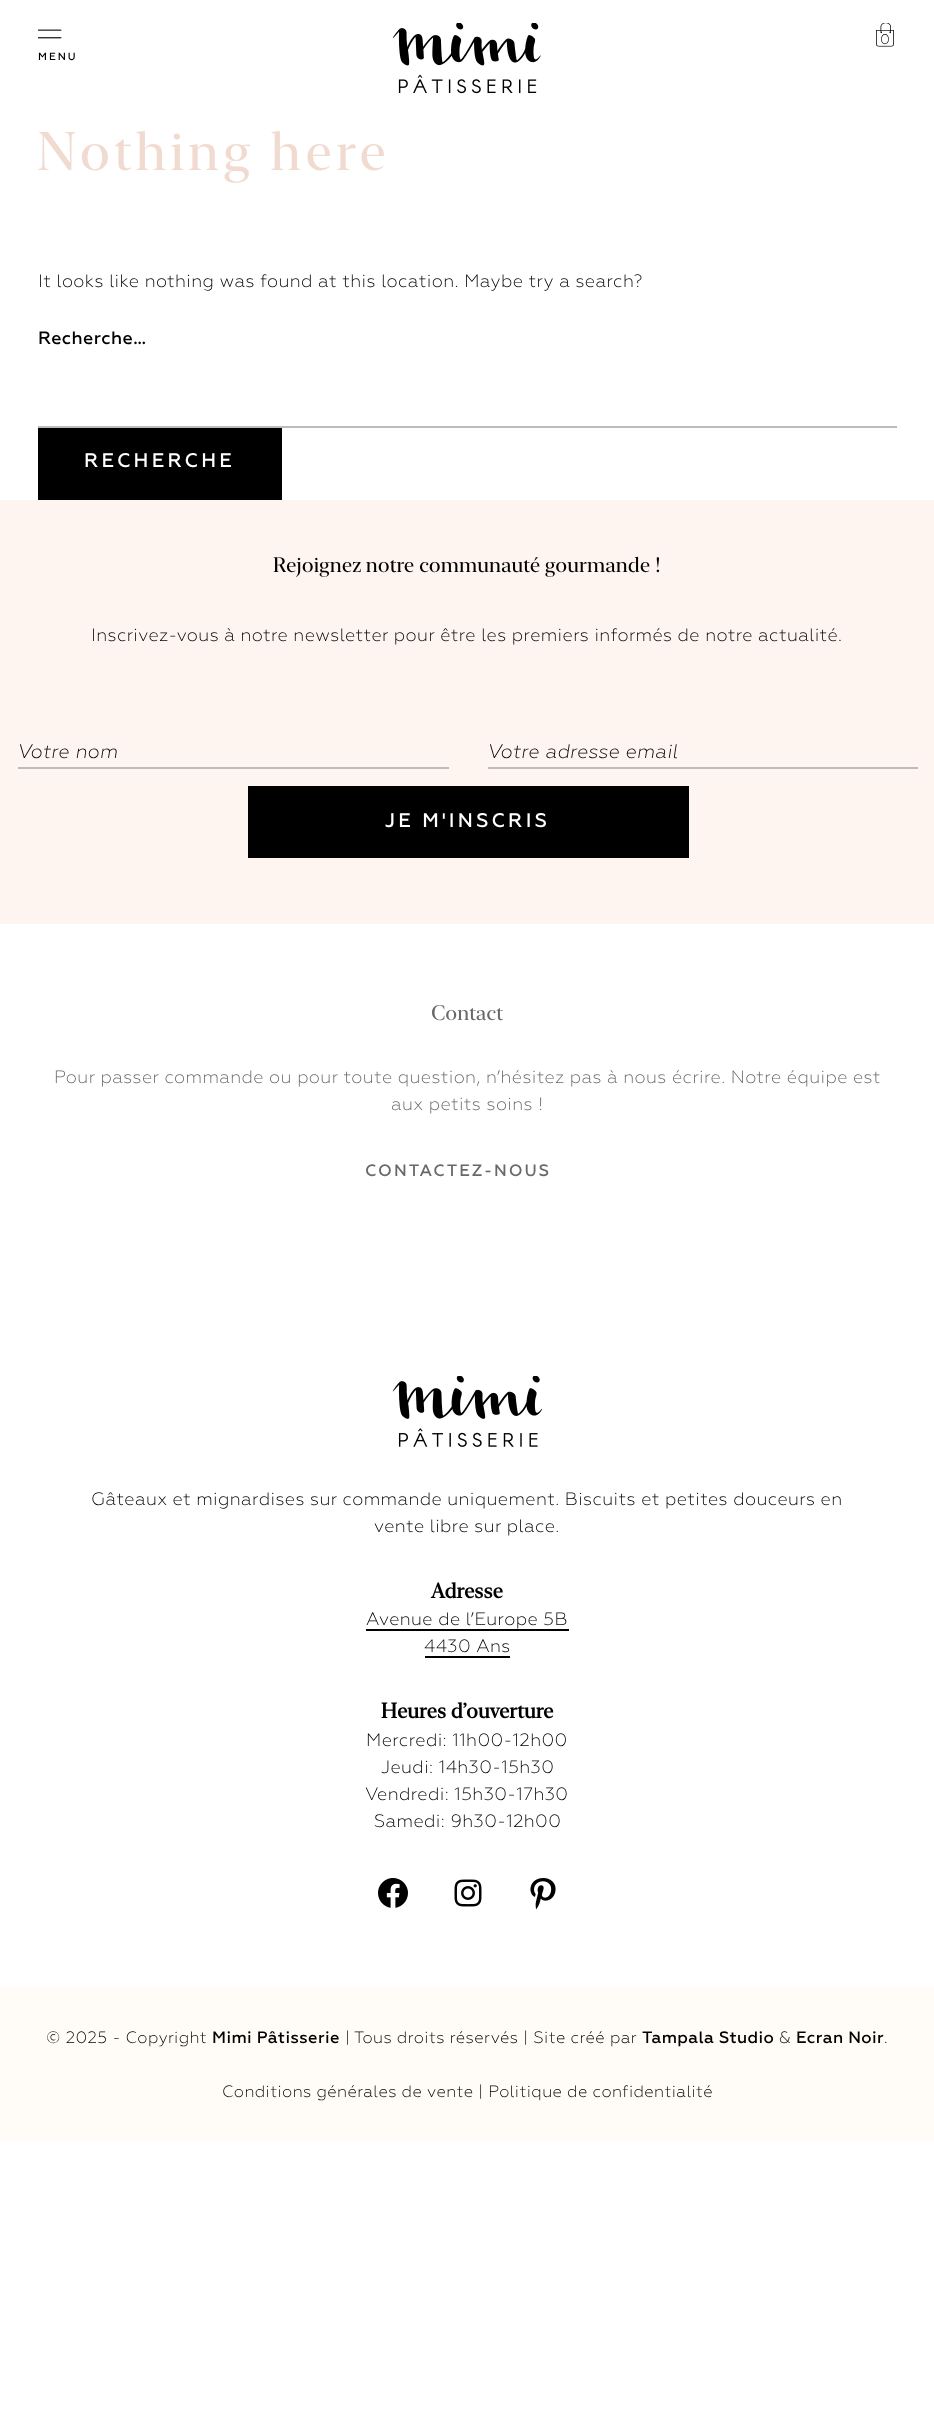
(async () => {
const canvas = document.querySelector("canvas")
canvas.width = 934
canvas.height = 2416
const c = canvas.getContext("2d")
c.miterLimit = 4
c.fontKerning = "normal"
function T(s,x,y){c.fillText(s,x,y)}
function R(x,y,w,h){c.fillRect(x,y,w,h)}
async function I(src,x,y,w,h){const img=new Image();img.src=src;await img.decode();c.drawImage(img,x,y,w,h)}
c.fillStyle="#fff"
R(0,0,934,2416)
await I("1.png",392,23,149,71)
await I("2.png",876,23,18,24)
c.letterSpacing="0.4px"
c.font="300 14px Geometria"
c.fillStyle="#000"
T("0",880,44)
await I("3.png",38,29,24,10)
c.letterSpacing="2px"
c.font="500 10.5px Geometria"
T("MENU",38,60)
c.letterSpacing="4px"
c.font="54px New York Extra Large"
c.fillStyle="#f1dbd0"
T("Nothing here",38,170)
c.letterSpacing="0.4px"
c.font="300 18px Geometria"
c.fillStyle="#000"
T("It looks like nothing was found at this location. Maybe try a search?",38,287)
c.font="500 18px Geometria"
T("Recherche…",38,344)
c.fillStyle="#bcbcbc"
R(38,426,859,2)
c.fillStyle="#000"
R(38,428,244,72)
c.letterSpacing="3.25px"
c.font="500 19.5px Geometria"
c.fillStyle="#fff"
T("RECHERCHE",84,467)
c.fillStyle="#fef5f0"
R(0,500,934,424)
c.letterSpacing="0px"
c.font="21px New York Extra Large"
c.fillStyle="#000"
T("Rejoignez notre communauté gourmande !",273,572)
c.letterSpacing="0.4px"
c.font="300 18px Geometria"
T("Inscrivez-vous à notre newsletter pour être les premiers informés de notre actualité.",91,641)
c.fillStyle="#bcbcbc"
R(18,767,431,2)
c.font="italic 300 19.5px Geometria"
c.fillStyle="#000"
T("Votre nom",17,758)
c.fillStyle="#bcbcbc"
R(488,767,430,2)
c.fillStyle="#000"
T("Votre adresse email",487,758)
R(248,786,441,72)
c.letterSpacing="3.25px"
c.font="500 19.5px Geometria"
c.fillStyle="#fff"
T("JE M'INSCRIS",385,827)
c.letterSpacing="0px"
c.font="21px New York Extra Large"
c.fillStyle="#696969"
T("Contact",431,1020)
c.letterSpacing="0.4px"
c.font="300 18px Geometria"
T("Pour passer commande ou pour toute question, n’hésitez pas à nous écrire. Notre équipe est",54,1083)
T("aux petits soins !",391,1110)
c.letterSpacing="2px"
c.font="500 16.5px Geometria"
T("CONTACTEZ-NOUS",365,1176)
await I("4.png",392,1376,151,71)
c.letterSpacing="0.4px"
c.font="300 18px Geometria"
c.fillStyle="#000"
T("Gâteaux et mignardises sur commande uniquement. Biscuits et petites douceurs en",91,1505)
T("vente libre sur place.",374,1532)
c.letterSpacing="0px"
c.font="bold 21px New York Extra Large"
T("Adresse",431,1598)
c.letterSpacing="0.4px"
c.font="300 18px Geometria"
T("Avenue de l’Europe 5B",366,1625)
R(366,1629,203,2)
T("4430 Ans",424,1652)
R(425,1656,85,2)
c.letterSpacing="0px"
c.font="bold 21px New York Extra Large"
T("Heures d’ouverture",381,1718)
c.letterSpacing="0.4px"
c.font="300 18px Geometria"
T("Mercredi: 11h00-12h00",366,1746)
T("Jeudi: 14h30-15h30",381,1773)
T("Vendredi: 15h30-17h30",365,1800)
T("Samedi: 9h30-12h00",374,1827)
await I("5.png",378,1878,30,30)
await I("6.png",454,1879,28,28)
await I("7.png",530,1878,26,32)
c.fillStyle="#fffcf8"
R(0,1986,934,156)
c.font="300 16.5px Geometria"
c.fillStyle="#000"
T("© 2025 - Copyright",46,2043)
c.font="500 16.5px Geometria"
T("Mimi Pâtisserie",212,2043)
c.font="300 16.5px Geometria"
T("|",345,2043)
T("Tous droits réservés | Site créé par",354,2043)
c.font="500 16.5px Geometria"
T("Tampala Studio",642,2043)
c.font="300 16.5px Geometria"
T("&",779,2043)
c.font="500 16.5px Geometria"
T("Ecran Noir",796,2043)
c.font="300 16.5px Geometria"
T(".",884,2043)
T("Conditions générales de vente | Politique de confidentialité",222,2097)
})()
